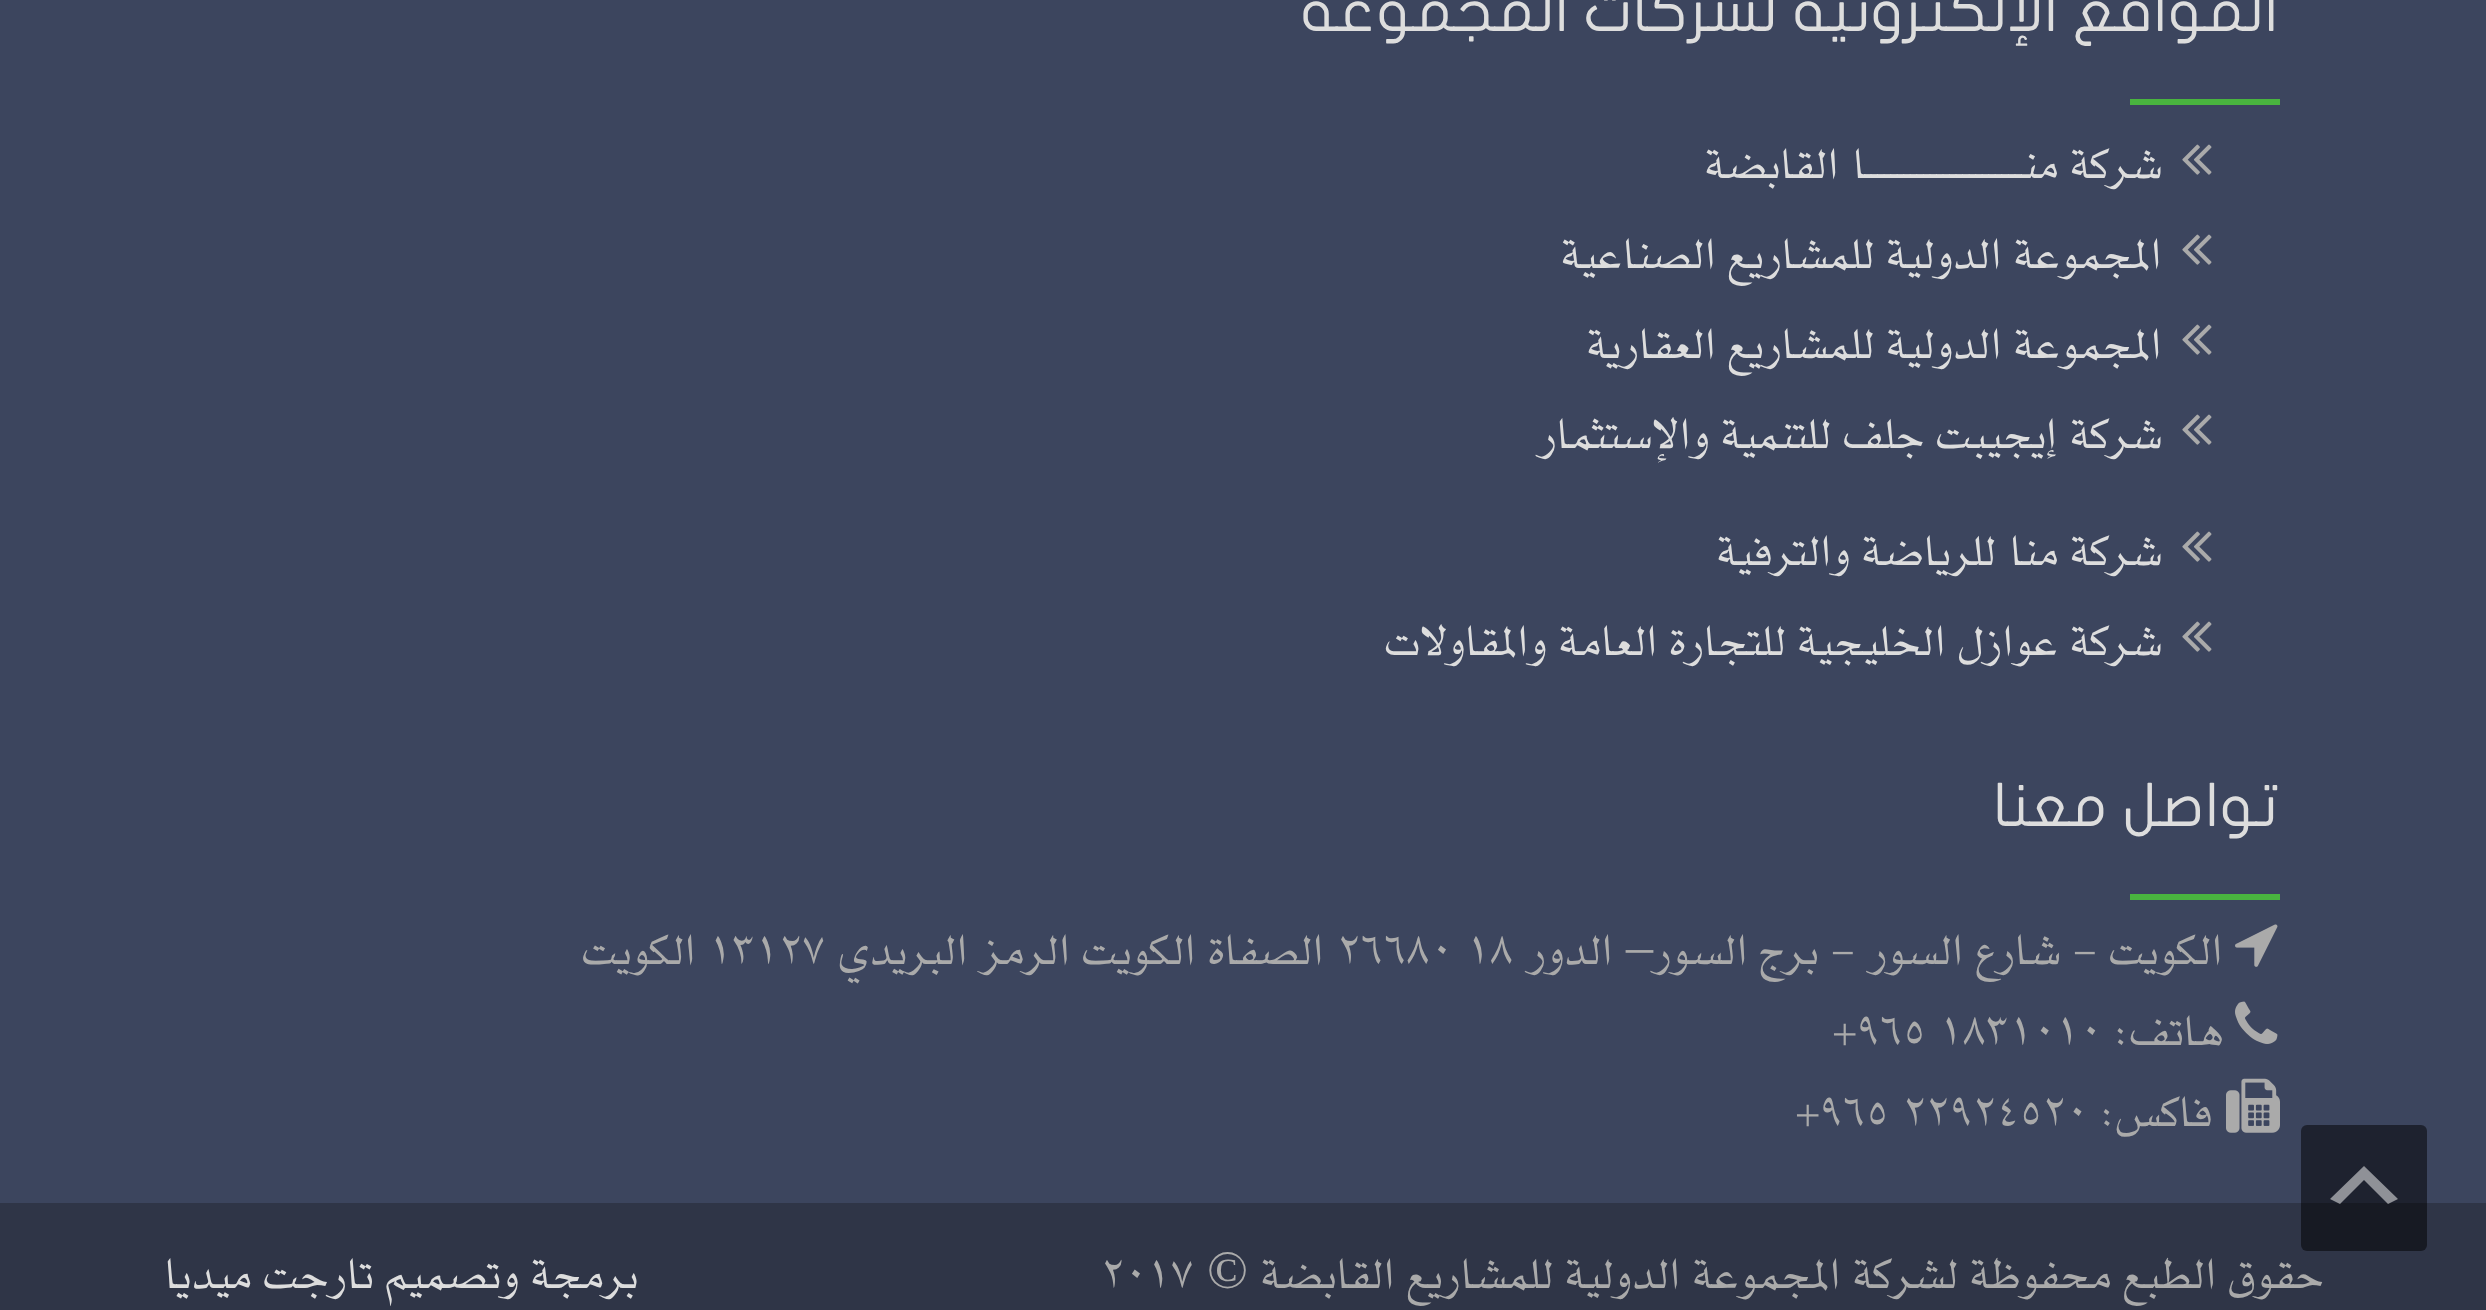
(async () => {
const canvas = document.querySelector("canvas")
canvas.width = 2486
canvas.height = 1310
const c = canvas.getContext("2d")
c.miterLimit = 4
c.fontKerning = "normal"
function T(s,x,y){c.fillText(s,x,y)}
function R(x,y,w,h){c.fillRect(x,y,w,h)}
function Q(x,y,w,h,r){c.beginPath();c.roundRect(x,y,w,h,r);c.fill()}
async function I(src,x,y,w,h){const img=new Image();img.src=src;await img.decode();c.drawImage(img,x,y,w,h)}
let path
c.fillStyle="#3c455e"
R(0,0,2486,1310)
c.fillStyle="#2f3547"
R(0,1203,2486,107)
c.fillStyle="#00000080"
Q(2301,1125,126,126,6)
c.fillStyle="#ffffff80"
path = new Path2D("M2388 1204l-24-24l-24 24l-10-5l34-33l34 33z")
c.fill(path)
c.direction="rtl"
c.font="60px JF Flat"
c.fillStyle="#ddd"
T("المواقع الإلكترونية لشركات المجموعة",2278,31)
c.fillStyle="#49b43f"
R(2130,99,150,6)
await I("1.png",2182,144,30,31)
c.font="54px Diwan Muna"
c.fillStyle="#ddd"
T("شركة منــــــــــــــــــــــــا القابضة",2161,178)
await I("1.png",2182,234,30,31)
T("المجموعة الدولية للمشاريع الصناعية",2161,268)
await I("1.png",2182,324,30,31)
T("المجموعة الدولية للمشاريع العقارية",2161,358)
await I("1.png",2182,414,30,31)
T("شركة إيجيبت جلف للتنمية والإستثمار",2161,448)
await I("1.png",2182,531,30,31)
T("شركة منا للرياضة والترفية",2161,565)
await I("1.png",2182,621,30,31)
T("شركة عوازل الخليجية للتجارة العامة والمقاولات",2161,655)
c.font="60px JF Flat"
T("تواصل معنا",2279,826)
c.fillStyle="#49b43f"
R(2130,894,150,6)
await I("2.png",2235,924,43,43)
c.font="54px Liberation Serif"
c.fillStyle="#aaa"
T("–",1653,964)
c.font="54px Diwan Muna"
T("الكويت - شارع السور - برج السور",2222,964)
T("الدور",1612,964)
c.direction="ltr"
T("26680 18",1337,964)
c.direction="rtl"
T("الصفاة",1323,964)
T("الكويت الرمز البريدي",1195,964)
c.direction="ltr"
T("13127",709,964)
c.direction="rtl"
T("الكويت",695,964)
await I("3.png",2235,1001,43,43)
T("هاتف:",2222,1045)
c.direction="ltr"
T("+965 1831010",1833,1045)
await I("4.png",2226,1078,54,55)
c.direction="rtl"
T("فاكس:",2211,1126)
c.direction="ltr"
T("+965 22924520",1796,1126)
c.direction="rtl"
T("حقوق الطبع محفوظة لشركة المجموعة الدولية للمشاريع القابضة",2323,1288)
c.font="54px Liberation Serif"
T("©",1248,1288)
c.direction="ltr"
c.font="54px Diwan Muna"
T("2017",1101,1288)
c.direction="rtl"
c.fillStyle="#ddd"
T("برمجة وتصميم تارجت ميديا",637,1288)
})()
